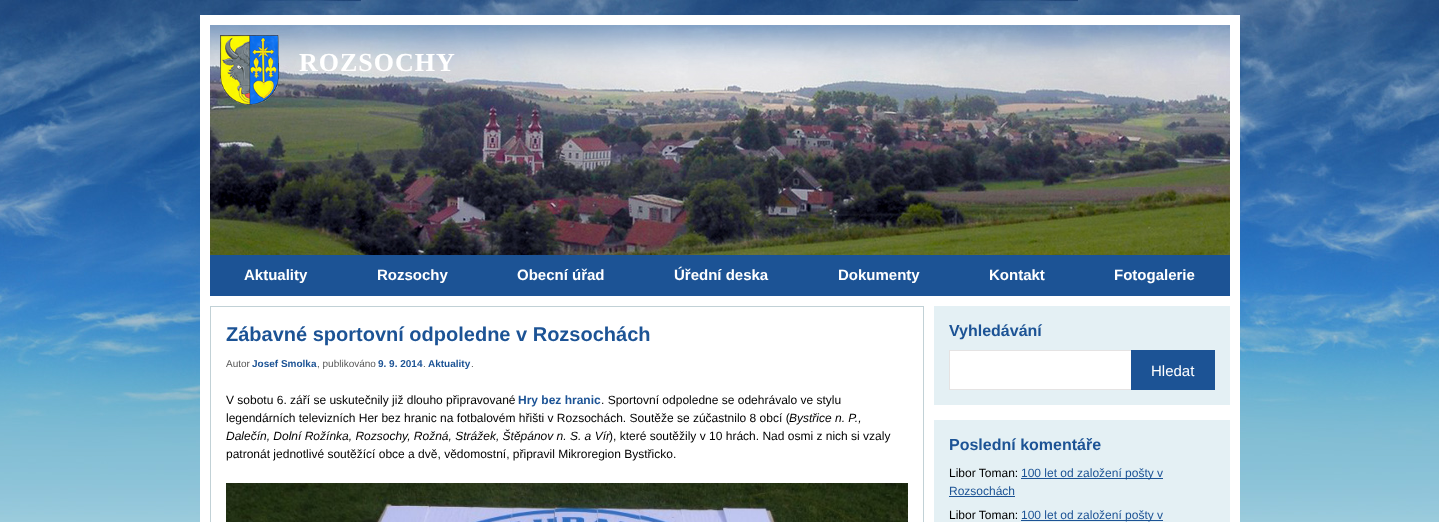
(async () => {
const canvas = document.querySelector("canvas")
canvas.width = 1439
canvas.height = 522
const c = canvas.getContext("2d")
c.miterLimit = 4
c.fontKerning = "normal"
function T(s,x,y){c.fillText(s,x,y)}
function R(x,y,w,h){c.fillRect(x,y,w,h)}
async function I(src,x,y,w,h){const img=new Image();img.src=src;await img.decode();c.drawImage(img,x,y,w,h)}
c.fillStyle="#fff"
R(0,0,1439,522)
await I("1.png",0,0,1439,522)
R(200,15,1040,507)
c.fillStyle="#1c5395"
R(210,255,1020,41)
await I("2.png",210,25,1020,230)
await I("3.png",220,35,59,70)
c.letterSpacing="1px"
c.font="bold 26px Liberation Serif"
c.fillStyle="#fff"
T("ROZSOCHY",299,71)
c.letterSpacing="0px"
c.font="bold 15px Liberation Sans"
T("Aktuality",244,280)
T("Rozsochy",377,280)
T("Obecní úřad",517,280)
T("Úřední deska",674,280)
T("Dokumenty",838,280)
T("Kontakt",989,280)
T("Fotogalerie",1114,280)
c.strokeStyle="#c1d1d6"
c.strokeRect(210.5,306.5,713,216)
c.font="bold 20px Liberation Sans"
c.fillStyle="#1c5395"
T("Zábavné sportovní odpoledne v Rozsochách",226,341)
c.font="10px Liberation Sans"
c.fillStyle="#575757"
T("Autor",226,367)
c.font="bold 10px Liberation Sans"
c.fillStyle="#1c5395"
T("Josef Smolka",252,367)
c.font="10px Liberation Sans"
c.fillStyle="#575757"
T(", publikováno",317,367)
c.font="bold 10px Liberation Sans"
c.fillStyle="#1c5395"
T("9. 9. 2014",378,367)
c.font="10px Liberation Sans"
c.fillStyle="#575757"
T(".",423,367)
c.font="bold 10px Liberation Sans"
c.fillStyle="#1c5395"
T("Aktuality",428,367)
c.font="10px Liberation Sans"
c.fillStyle="#575757"
T(".",471,367)
c.font="12px Liberation Sans"
c.fillStyle="#000"
T("V sobotu 6. září se uskutečnily již dlouho připravované",226,404)
c.font="bold 12px Liberation Sans"
c.fillStyle="#1c5395"
T("Hry bez hranic",518,404)
c.font="12px Liberation Sans"
c.fillStyle="#000"
T(". Sportovní odpoledne se odehrávalo ve stylu",601,404)
T("legendárních televizních Her bez hranic na fotbalovém hřišti v Rozsochách. Soutěže se zúčastnilo 8 obcí (",226,422)
c.font="italic 12px Liberation Sans"
T("Bystřice n. P.,",789,422)
T("Dalečín, Dolní Rožínka, Rozsochy, Rožná, Strážek, Štěpánov n. S. a Vír",226,440)
c.font="12px Liberation Sans"
T("), které soutěžily v 10 hrách. Nad osmi z nich si vzaly",609,440)
T("patronát jednotlivé soutěžící obce a dvě, vědomostní, připravil Mikroregion Bystřicko.",226,458)
await I("4.png",226,483,682,39)
c.fillStyle="#e4f0f4"
R(934,306,296,99)
c.font="bold 16px Liberation Sans"
c.fillStyle="#1c5395"
T("Vyhledávání",949,336)
c.fillStyle="#fff"
R(950,351,181,38)
c.strokeStyle="#e5e3e3"
c.strokeRect(949.5,350.5,265,39)
c.fillStyle="#1c5395"
R(1131,350,84,40)
c.font="15px Liberation Sans"
c.fillStyle="#fff"
T("Hledat",1151,376)
c.fillStyle="#e4f0f4"
R(934,420,296,102)
c.font="bold 16px Liberation Sans"
c.fillStyle="#1c5395"
T("Poslední komentáře",949,450)
c.font="12px Liberation Sans"
c.fillStyle="#000"
T("Libor Toman:",949,477)
c.fillStyle="#1c5395"
R(1021,478,142,1)
T("100 let od založení pošty v",1021,477)
T("Rozsochách",949,495)
R(949,496,66,1)
c.fillStyle="#000"
T("Libor Toman:",949,519)
c.fillStyle="#1c5395"
R(1021,520,142,1)
T("100 let od založení pošty v",1021,519)
})()
